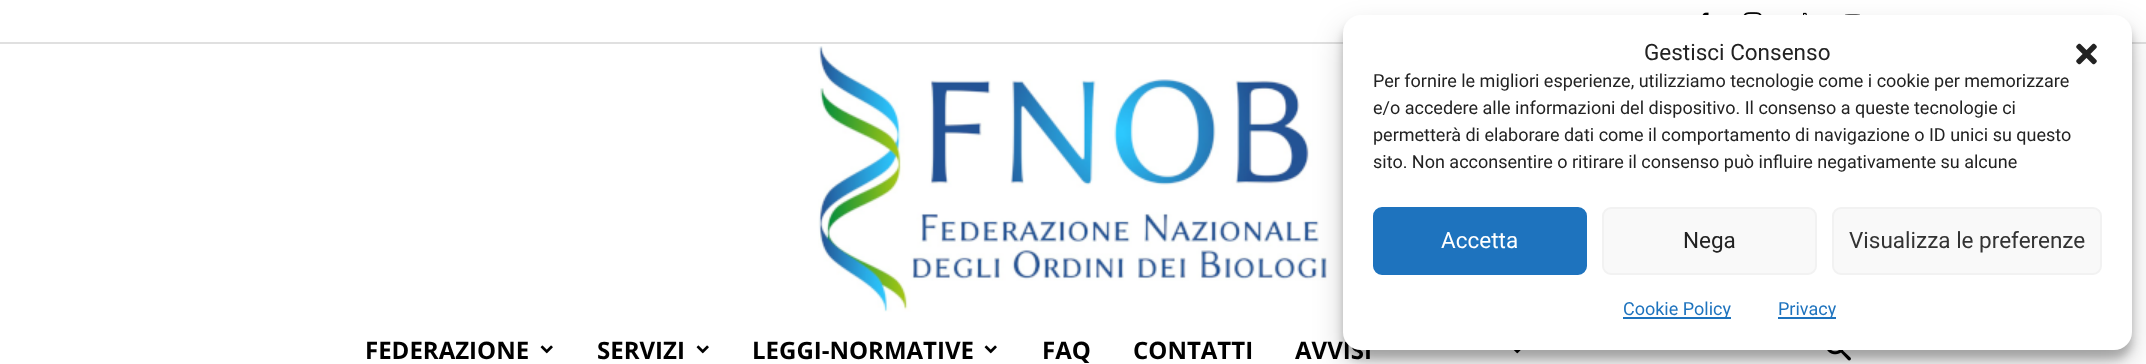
(async () => {
const canvas = document.querySelector("canvas")
canvas.width = 2146
canvas.height = 364
const c = canvas.getContext("2d")
c.miterLimit = 4
c.fontKerning = "normal"
function T(s,x,y){c.fillText(s,x,y)}
function R(x,y,w,h){c.fillRect(x,y,w,h)}
function Q(x,y,w,h,r){c.beginPath();c.roundRect(x,y,w,h,r);c.fill()}
async function I(src,x,y,w,h){const img=new Image();img.src=src;await img.decode();c.drawImage(img,x,y,w,h)}
c.fillStyle="#fff"
R(0,0,2146,364)
c.fillStyle="#e0e0e0"
R(0,42,2146,2)
await I("2.png",1702,12,7,3)
await I("3.png",1743,12,19,3)
await I("4.png",1803,12,4,3)
await I("5.png",1845,14,15,1)
await I("8.png",1513,350,8,4)
await I("9.png",1827,350,24,11)
c.fillStyle="#0000003b"
c.filter="blur(4.5px)"
c.beginPath()
c.roundRect(1343,24,789,335,18)
c.fill()
c.filter="none"
await I("6.png",818,46,509,266)
c.fillStyle="#00000030"
c.filter="blur(15px)"
c.beginPath()
c.roundRect(1343,30,789,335,18)
c.fill()
c.filter="none"
c.font="bold 24px Open Sans"
c.fillStyle="#000"
T("AVVISI",1295,359)
c.fillStyle="#fff"
Q(1343,15,789,335,18)
c.font="22.5px Roboto"
c.fillStyle="#222"
T("Gestisci Consenso",1644,60)
await I("1.png",2076,43,21,22)
c.font="18px Roboto"
T("Per fornire le migliori esperienze, utilizziamo tecnologie come i cookie per memorizzare",1373,87)
T("e/o accedere alle informazioni del dispositivo. Il consenso a queste tecnologie ci",1373,114)
T("permetterà di elaborare dati come il comportamento di navigazione o ID unici su questo",1373,141)
T("sito. Non acconsentire o ritirare il consenso può influire negativamente su alcune",1373,168)
c.fillStyle="#1e73be"
c.beginPath()
c.roundRect(1374,208,212,66,8)
c.fill()
c.strokeStyle="#1e73be"
c.lineWidth=2
c.stroke()
c.font="22.5px Roboto"
c.fillStyle="#fff"
T("Accetta",1441,248)
c.fillStyle="#f9f9f9"
c.beginPath()
c.roundRect(1603,208,213,66,8)
c.fill()
c.strokeStyle="#f2f2f2"
c.stroke()
c.fillStyle="#222"
T("Nega",1683,248)
c.fillStyle="#f9f9f9"
c.beginPath()
c.roundRect(1833,208,268,66,8)
c.fill()
c.stroke()
c.fillStyle="#333"
T("Visualizza le preferenze",1849,248)
c.fillStyle="#1e73be"
R(1623,317,108,2)
c.font="18px Roboto"
T("Cookie Policy",1623,315)
R(1778,317,58,2)
T("Privacy",1778,315)
c.font="bold 24px Open Sans"
c.fillStyle="#000"
T("FEDERAZIONE",365,359)
await I("7.png",540,345,13,9)
T("SERVIZI",597,359)
await I("7.png",696,345,13,9)
T("LEGGI-NORMATIVE",752,359)
await I("7.png",984,345,13,9)
T("FAQ",1042,359)
T("CONTATTI",1133,359)
})()
